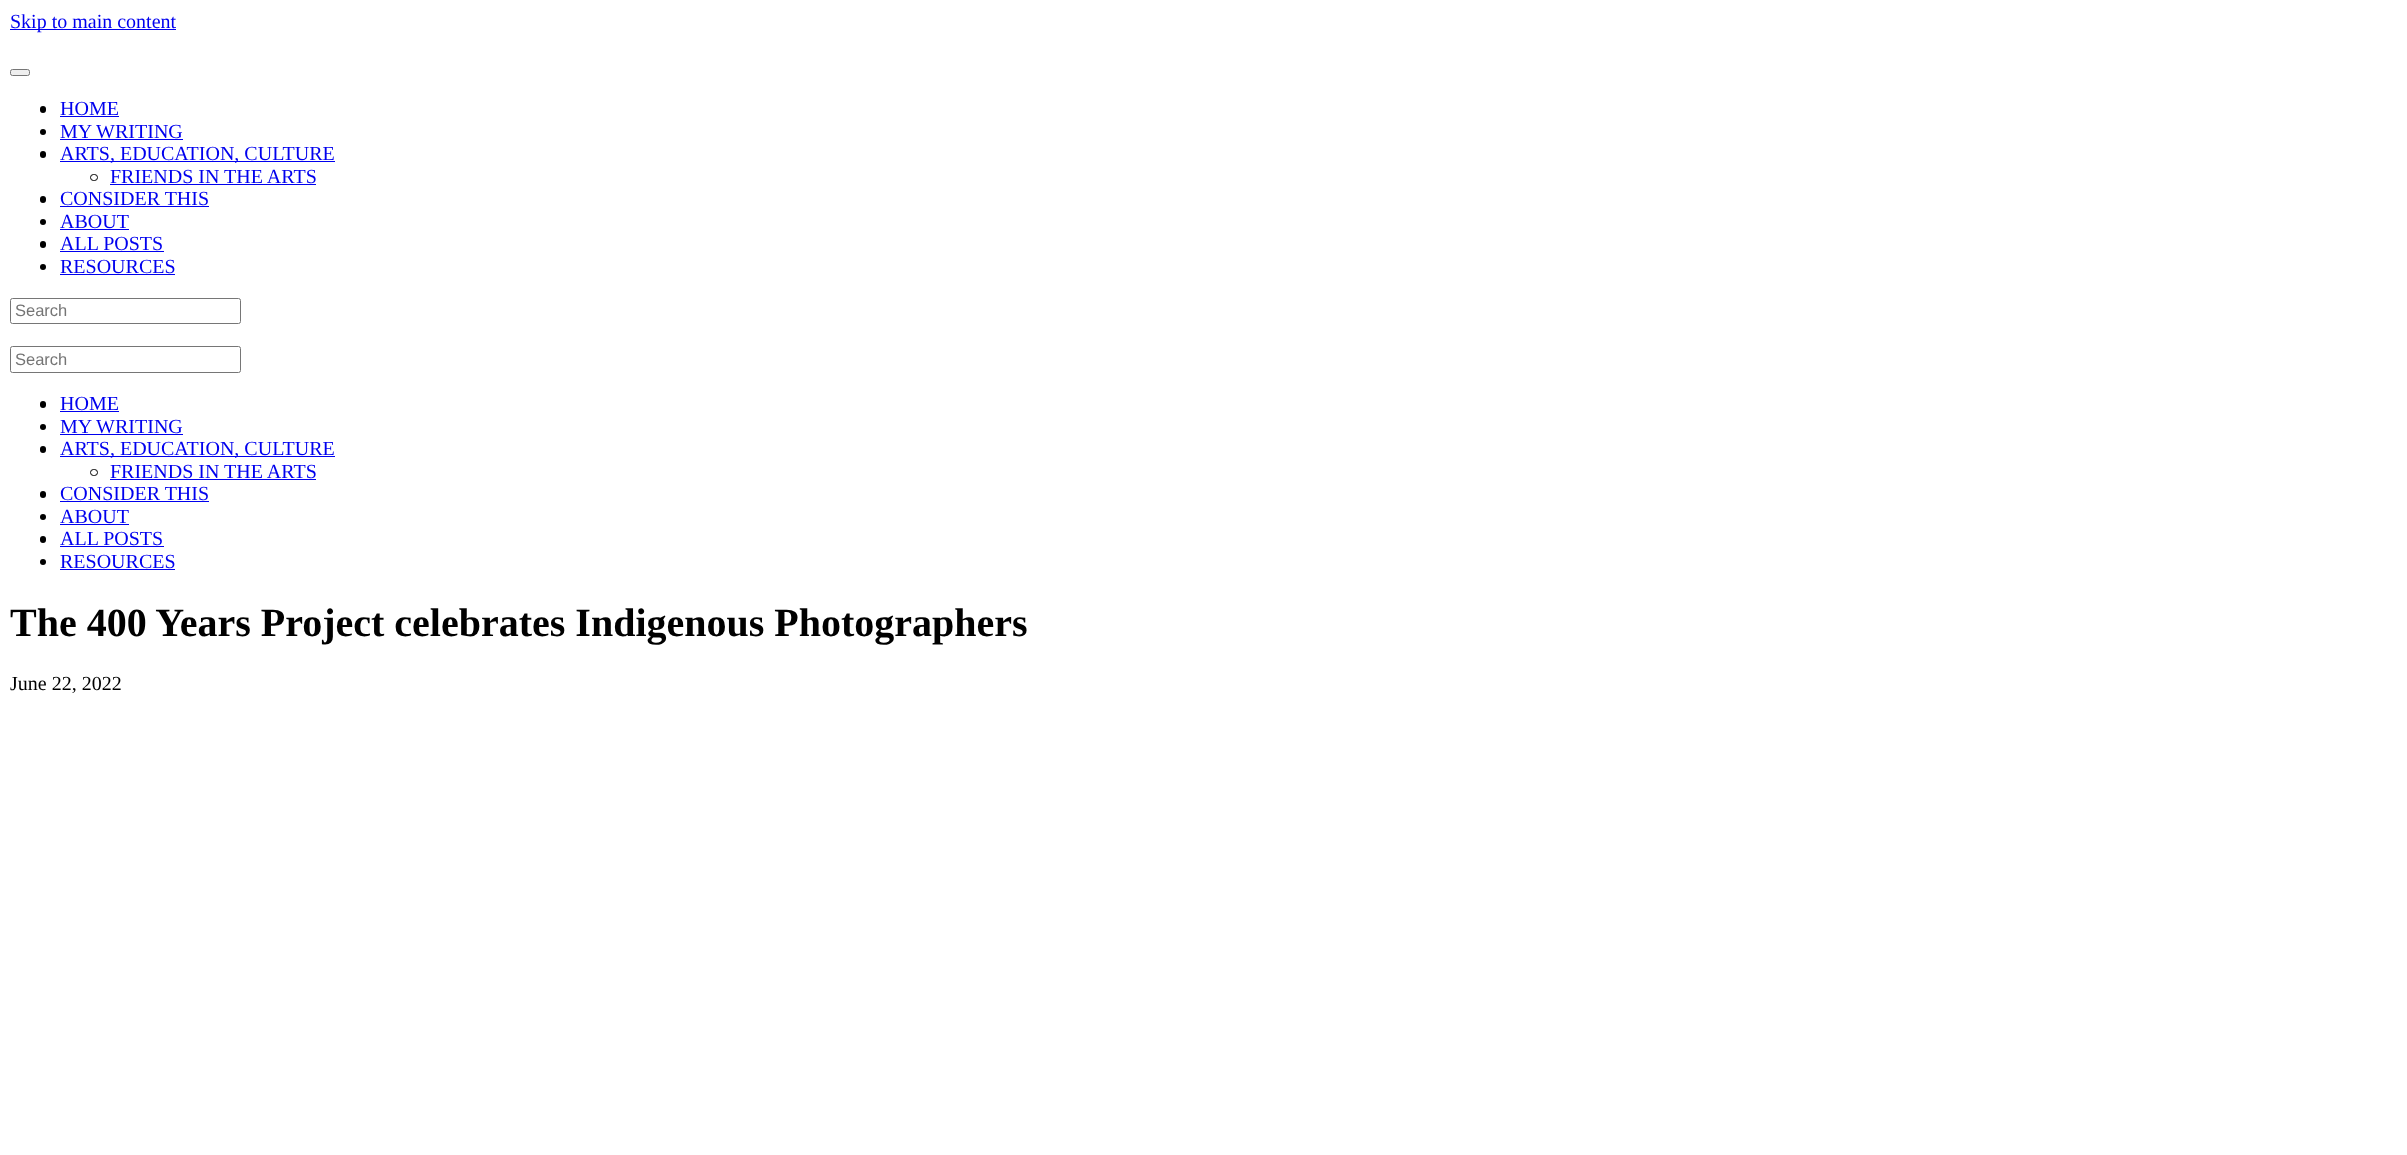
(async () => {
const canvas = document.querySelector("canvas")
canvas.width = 2407
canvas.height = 1155
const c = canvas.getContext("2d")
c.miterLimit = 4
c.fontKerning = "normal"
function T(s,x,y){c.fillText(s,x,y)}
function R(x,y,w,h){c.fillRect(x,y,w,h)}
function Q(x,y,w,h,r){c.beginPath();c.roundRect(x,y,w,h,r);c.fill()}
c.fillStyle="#fff"
R(0,0,2407,1155)
c.fillStyle="#00e"
R(10,29,166,1)
c.font="20px Liberation Serif"
T("Skip to main content",10,28)
c.fillStyle="#efefef"
c.beginPath()
c.roundRect(10.5,69.5,19,6,2)
c.fill()
c.strokeStyle="#767676"
c.stroke()
c.fillStyle="#000"
Q(40,106,6,7,3)
c.fillStyle="#00e"
T("HOME",60,115)
R(60,116,59,1)
c.fillStyle="#000"
c.beginPath()
c.arc(43,132,3,0,7)
c.fill()
c.fillStyle="#00e"
T("MY WRITING",60,138)
R(60,139,123,1)
c.fillStyle="#000"
Q(40,151,6,7,3)
c.fillStyle="#00e"
R(60,161,275,1)
T("ARTS, EDUCATION, CULTURE",60,160)
c.beginPath()
c.roundRect(90.5,174.5,7,6,3)
c.strokeStyle="#000"
c.stroke()
T("FRIENDS IN THE ARTS",110,183)
R(110,184,206,1)
c.fillStyle="#000"
Q(40,196,6,7,3)
c.fillStyle="#00e"
T("CONSIDER THIS",60,205)
R(60,206,149,1)
c.fillStyle="#000"
c.beginPath()
c.arc(43,222,3,0,7)
c.fill()
c.fillStyle="#00e"
T("ABOUT",60,228)
R(60,229,69,1)
c.fillStyle="#000"
Q(40,241,6,7,3)
c.fillStyle="#00e"
T("ALL POSTS",60,250)
R(60,251,104,1)
c.fillStyle="#000"
c.beginPath()
c.arc(43,267,3,0,7)
c.fill()
c.fillStyle="#00e"
T("RESOURCES",60,273)
R(60,274,115,1)
c.beginPath()
c.roundRect(10.5,298.5,230,25,2)
c.strokeStyle="#767676"
c.stroke()
c.font="16.5px Liberation Sans"
c.fillStyle="#757575"
T("Search",15,316)
c.beginPath()
c.roundRect(10.5,346.5,230,26,2)
c.stroke()
T("Search",15,365)
c.fillStyle="#000"
Q(40,401,6,7,3)
c.font="20px Liberation Serif"
c.fillStyle="#00e"
T("HOME",60,410)
R(60,411,59,1)
c.fillStyle="#000"
c.beginPath()
c.arc(43,427,3,0,7)
c.fill()
c.fillStyle="#00e"
T("MY WRITING",60,433)
R(60,434,123,1)
c.fillStyle="#000"
Q(40,446,6,7,3)
c.fillStyle="#00e"
R(60,456,275,1)
T("ARTS, EDUCATION, CULTURE",60,455)
c.beginPath()
c.roundRect(90.5,469.5,7,6,3)
c.strokeStyle="#000"
c.stroke()
T("FRIENDS IN THE ARTS",110,478)
R(110,479,206,1)
c.fillStyle="#000"
Q(40,491,6,7,3)
c.fillStyle="#00e"
T("CONSIDER THIS",60,500)
R(60,501,149,1)
c.fillStyle="#000"
c.beginPath()
c.arc(43,517,3,0,7)
c.fill()
c.fillStyle="#00e"
T("ABOUT",60,523)
R(60,524,69,1)
c.fillStyle="#000"
Q(40,536,6,7,3)
c.fillStyle="#00e"
T("ALL POSTS",60,545)
R(60,546,104,1)
c.fillStyle="#000"
c.beginPath()
c.arc(43,562,3,0,7)
c.fill()
c.fillStyle="#00e"
T("RESOURCES",60,568)
R(60,569,115,1)
c.font="bold 40px Liberation Serif"
c.fillStyle="#000"
T("The 400 Years Project celebrates Indigenous Photographers",10,636)
c.font="20px Liberation Serif"
T("June 22, 2022",10,690)
})()
